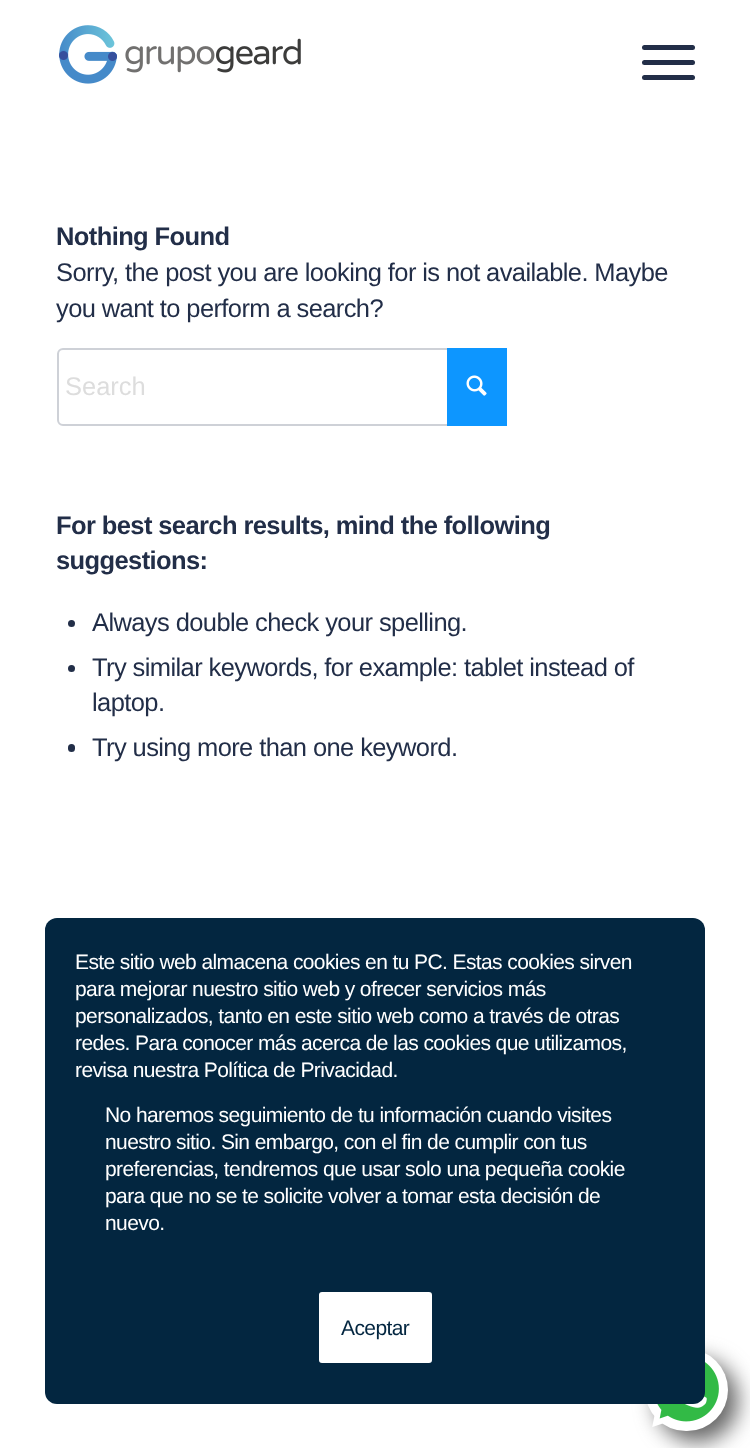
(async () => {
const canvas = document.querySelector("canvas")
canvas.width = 750
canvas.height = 1448
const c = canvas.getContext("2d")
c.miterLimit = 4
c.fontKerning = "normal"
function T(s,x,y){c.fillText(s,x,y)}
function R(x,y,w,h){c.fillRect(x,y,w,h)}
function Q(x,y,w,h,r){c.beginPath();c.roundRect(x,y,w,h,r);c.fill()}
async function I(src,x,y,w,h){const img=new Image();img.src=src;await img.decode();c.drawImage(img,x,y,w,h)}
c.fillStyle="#fff"
R(0,0,750,1448)
await I("1.png",59,25,242,59)
c.fillStyle="#222e48"
Q(642,60,53,5,2.5)
Q(642,45,53,5,2.5)
Q(642,75,53,5,2.5)
c.letterSpacing="-0.6px"
c.font="bold 25.5px Liberation Sans"
T("Nothing Found",56,245)
c.font="25.5px Liberation Sans"
T("Sorry, the post you are looking for is not available. Maybe",56,281)
T("you want to perform a search?",56,317)
c.beginPath()
c.roundRect(58,349,448,76,5)
c.strokeStyle="#ced1d7"
c.lineWidth=2
c.stroke()
c.letterSpacing="0px"
c.fillStyle="#ddd"
T("Search",65,395)
c.fillStyle="#0d96ff"
R(447,348,60,78)
await I("2.png",466,375,21,21)
c.letterSpacing="-0.6px"
c.font="bold 25.5px Liberation Sans"
c.fillStyle="#222e48"
T("For best search results, mind the following",56,534)
T("suggestions:",56,569)
c.beginPath()
c.arc(71.5,623.5,3.5,0,7)
c.fill()
c.font="25.5px Liberation Sans"
T("Always double check your spelling.",92,631)
c.beginPath()
c.arc(71.5,668.5,3.5,0,7)
c.fill()
T("Try similar keywords, for example: tablet instead of",92,676)
T("laptop.",92,711)
Q(68,744,7,8,3.5)
T("Try using more than one keyword.",92,756)
c.fillStyle="#666"
c.filter="blur(10.5px)"
c.beginPath()
c.roundRect(656,1359,82,83,41)
c.fill()
c.filter="none"
c.fillStyle="#fff"
Q(645,1349,83,82,41)
await I("3.png",652,1356,67,71)
c.fillStyle="#032640"
Q(45,918,660,486,12)
c.font="21px Liberation Sans"
c.fillStyle="#fff"
T("Este sitio web almacena cookies en tu PC. Estas cookies sirven",75,969)
T("para mejorar nuestro sitio web y ofrecer servicios más",75,996)
T("personalizados, tanto en este sitio web como a través de otras",75,1023)
T("redes. Para conocer más acerca de las cookies que utilizamos,",75,1050)
T("revisa nuestra Política de Privacidad.",75,1077)
T("No haremos seguimiento de tu información cuando visites",105,1122)
T("nuestro sitio. Sin embargo, con el fin de cumplir con tus",105,1149)
T("preferencias, tendremos que usar solo una pequeña cookie",105,1176)
T("para que no se te solicite volver a tomar esta decisión de",105,1203)
T("nuevo.",105,1230)
c.beginPath()
c.roundRect(318,1291,115,73,4)
c.fill()
c.strokeStyle="#032640"
c.stroke()
c.fillStyle="#032640"
T("Aceptar",341,1335)
})()
